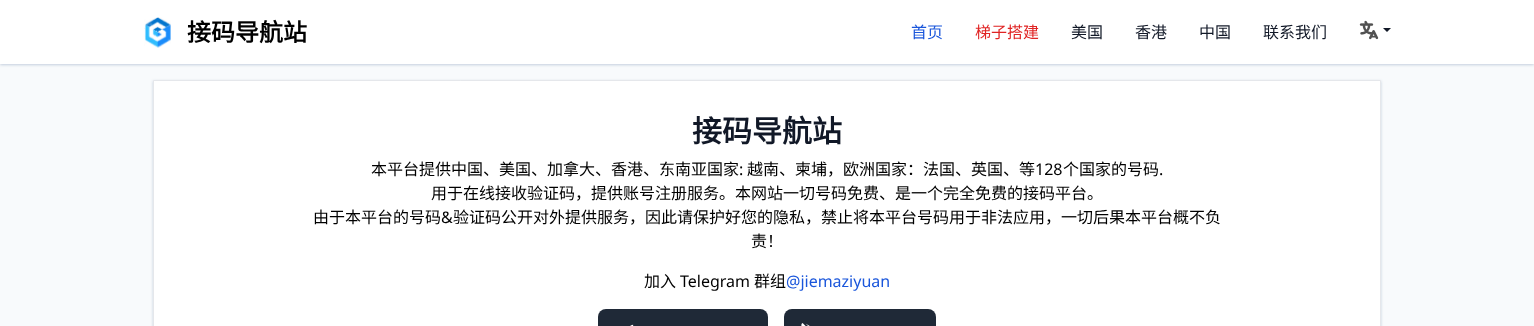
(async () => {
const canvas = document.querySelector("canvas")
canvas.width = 1534
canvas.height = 326
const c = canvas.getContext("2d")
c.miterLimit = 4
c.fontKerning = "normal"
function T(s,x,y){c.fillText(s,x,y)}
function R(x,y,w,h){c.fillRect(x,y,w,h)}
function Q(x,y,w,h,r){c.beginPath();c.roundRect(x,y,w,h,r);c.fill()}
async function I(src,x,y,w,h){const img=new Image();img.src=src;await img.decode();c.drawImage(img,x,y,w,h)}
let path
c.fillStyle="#f8fafc"
R(0,0,1534,326)
c.fillStyle="#cbd5e1"
c.filter="blur(1px)"
c.beginPath()
c.rect(1,2,1532,62)
c.fill()
c.filter="none"
c.filter="blur(1.5px)"
c.beginPath()
c.rect(0,1,1534,64)
c.fill()
c.filter="none"
c.fillStyle="#fff"
R(0,0,1534,64)
await I("1.png",144,17,27,31)
c.font="bold 24px Noto Sans CJK SC"
c.fillStyle="#000"
T("接码导航站",187,41)
c.font="16px Noto Sans CJK SC"
c.fillStyle="#1a56db"
T("首页",911,38)
c.fillStyle="#e02424"
T("梯子搭建",975,38)
c.fillStyle="#111827"
T("美国",1071,38)
T("香港",1135,38)
T("中国",1199,38)
T("联系我们",1263,38)
await I("2.png",1359,20,20,20)
path = new Path2D("M1383 28h8l-4 4z")
c.fill(path)
c.fillStyle="#cbd5e1"
c.filter="blur(1px)"
c.beginPath()
c.rect(154,82,1226,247)
c.fill()
c.filter="none"
c.filter="blur(1.5px)"
c.beginPath()
c.rect(153,81,1228,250)
c.fill()
c.filter="none"
c.fillStyle="#fff"
c.beginPath()
c.rect(153.5,80.5,1227,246)
c.fill()
c.strokeStyle="#e5e7eb"
c.stroke()
c.font="bold 30px Noto Sans CJK SC"
c.fillStyle="#111827"
T("接码导航站",692,142)
c.font="16px Noto Sans CJK SC"
c.fillStyle="#000"
T("本平台提供中国、美国、加拿大、香港、东南亚国家",371,175)
c.font="16px Noto Sans"
T(":",739,175)
c.font="16px Noto Sans CJK SC"
T("越南、柬埔，欧洲国家：法国、英国、等",747,175)
c.font="16px Noto Sans"
T("128",1035,175)
c.font="16px Noto Sans CJK SC"
T("个国家的号码",1063,175)
c.font="16px Noto Sans"
T(".",1159,175)
c.font="16px Noto Sans CJK SC"
T("用于在线接收验证码，提供账号注册服务。本网站一切号码免费、是一个完全免费的接码平台。",431,199)
T("由于本平台的号码",313,223)
c.font="16px Noto Sans"
T("&",441,223)
c.font="16px Noto Sans CJK SC"
T("验证码公开对外提供服务，因此请保护好您的隐私，禁止将本平台号码用于非法应用，一切后果本平台概不负",453,223)
T("责！",751,247)
T("加入",644,287)
c.font="16px Noto Sans"
T("Telegram",680,287)
c.font="16px Noto Sans CJK SC"
T("群组",754,287)
c.font="16px Noto Sans"
c.fillStyle="#1a56db"
T("@jiemaziyuan",786,287)
c.fillStyle="#1f2937"
Q(598,309,170,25,8)
await I("3.png",630,324,4,2)
Q(784,309,152,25,8)
await I("4.png",801,323,9,3)
})()
